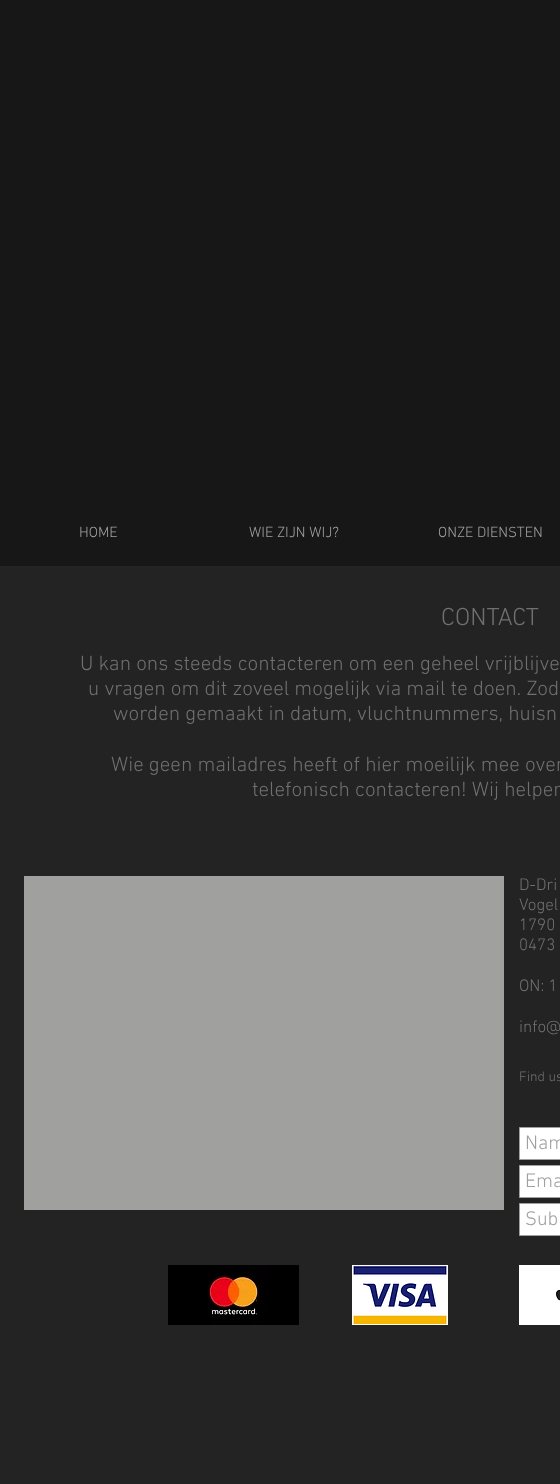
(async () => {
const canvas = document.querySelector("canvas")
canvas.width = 560
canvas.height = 1484
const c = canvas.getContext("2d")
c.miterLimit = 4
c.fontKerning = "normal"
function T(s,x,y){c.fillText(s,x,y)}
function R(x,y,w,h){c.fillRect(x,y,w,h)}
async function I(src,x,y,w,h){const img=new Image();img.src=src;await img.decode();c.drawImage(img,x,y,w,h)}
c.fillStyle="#171717"
R(0,0,560,1484)
c.font="300 15px 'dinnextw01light'"
c.fillStyle="#a0a09f"
T("HOME",79,537)
T("WIE ZIJN WIJ?",249,537)
T("ONZE DIENSTEN",438,537)
c.fillStyle="#232323"
R(0,566,560,918)
c.font="300 25px 'dinnextw01light'"
c.fillStyle="#707070"
T("CONTACT",441,625)
c.font="300 21px 'dinnextw01light'"
T("U kan ons steeds contacteren om een geheel vrijblijve",80,670)
T("u vragen om dit zoveel mogelijk via mail te doen. Zod",88,695)
T("worden gemaakt in datum, vluchtnummers, huisn",113,720)
T("Wie geen mailadres heeft of hier moeilijk mee over",111,771)
T("telefonisch contacteren! Wij helpen",252,796)
c.fillStyle="#a0a09f"
R(24,876,480,334)
c.font="300 17px 'dinnextw01light'"
c.fillStyle="#707070"
T("D-Dri",519,890)
T("Vogel",519,910)
T("1790",519,930)
T("0473",519,950)
T("ON: 1",519,991)
T("info@",519,1032)
c.font="300 14px 'dinnextw01light'"
T("Find us",519,1081)
c.fillStyle="#fff"
c.beginPath()
c.rect(519.5,1127.5,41,32)
c.fill()
c.strokeStyle="#a0a09f"
c.stroke()
c.font="300 20px 'dinnextw01light'"
c.fillStyle="#a0a09f"
T("Nam",525,1149)
c.fillStyle="#fff"
c.beginPath()
c.rect(519.5,1165.5,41,32)
c.fill()
c.stroke()
c.fillStyle="#a0a09f"
T("Ema",525,1187)
c.fillStyle="#fff"
c.beginPath()
c.rect(519.5,1203.5,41,32)
c.fill()
c.stroke()
c.fillStyle="#a0a09f"
T("Sub",525,1225)
await I("1.png",168,1265,131,60)
await I("2.png",352,1265,96,60)
await I("3.png",519,1265,41,60)
})()
